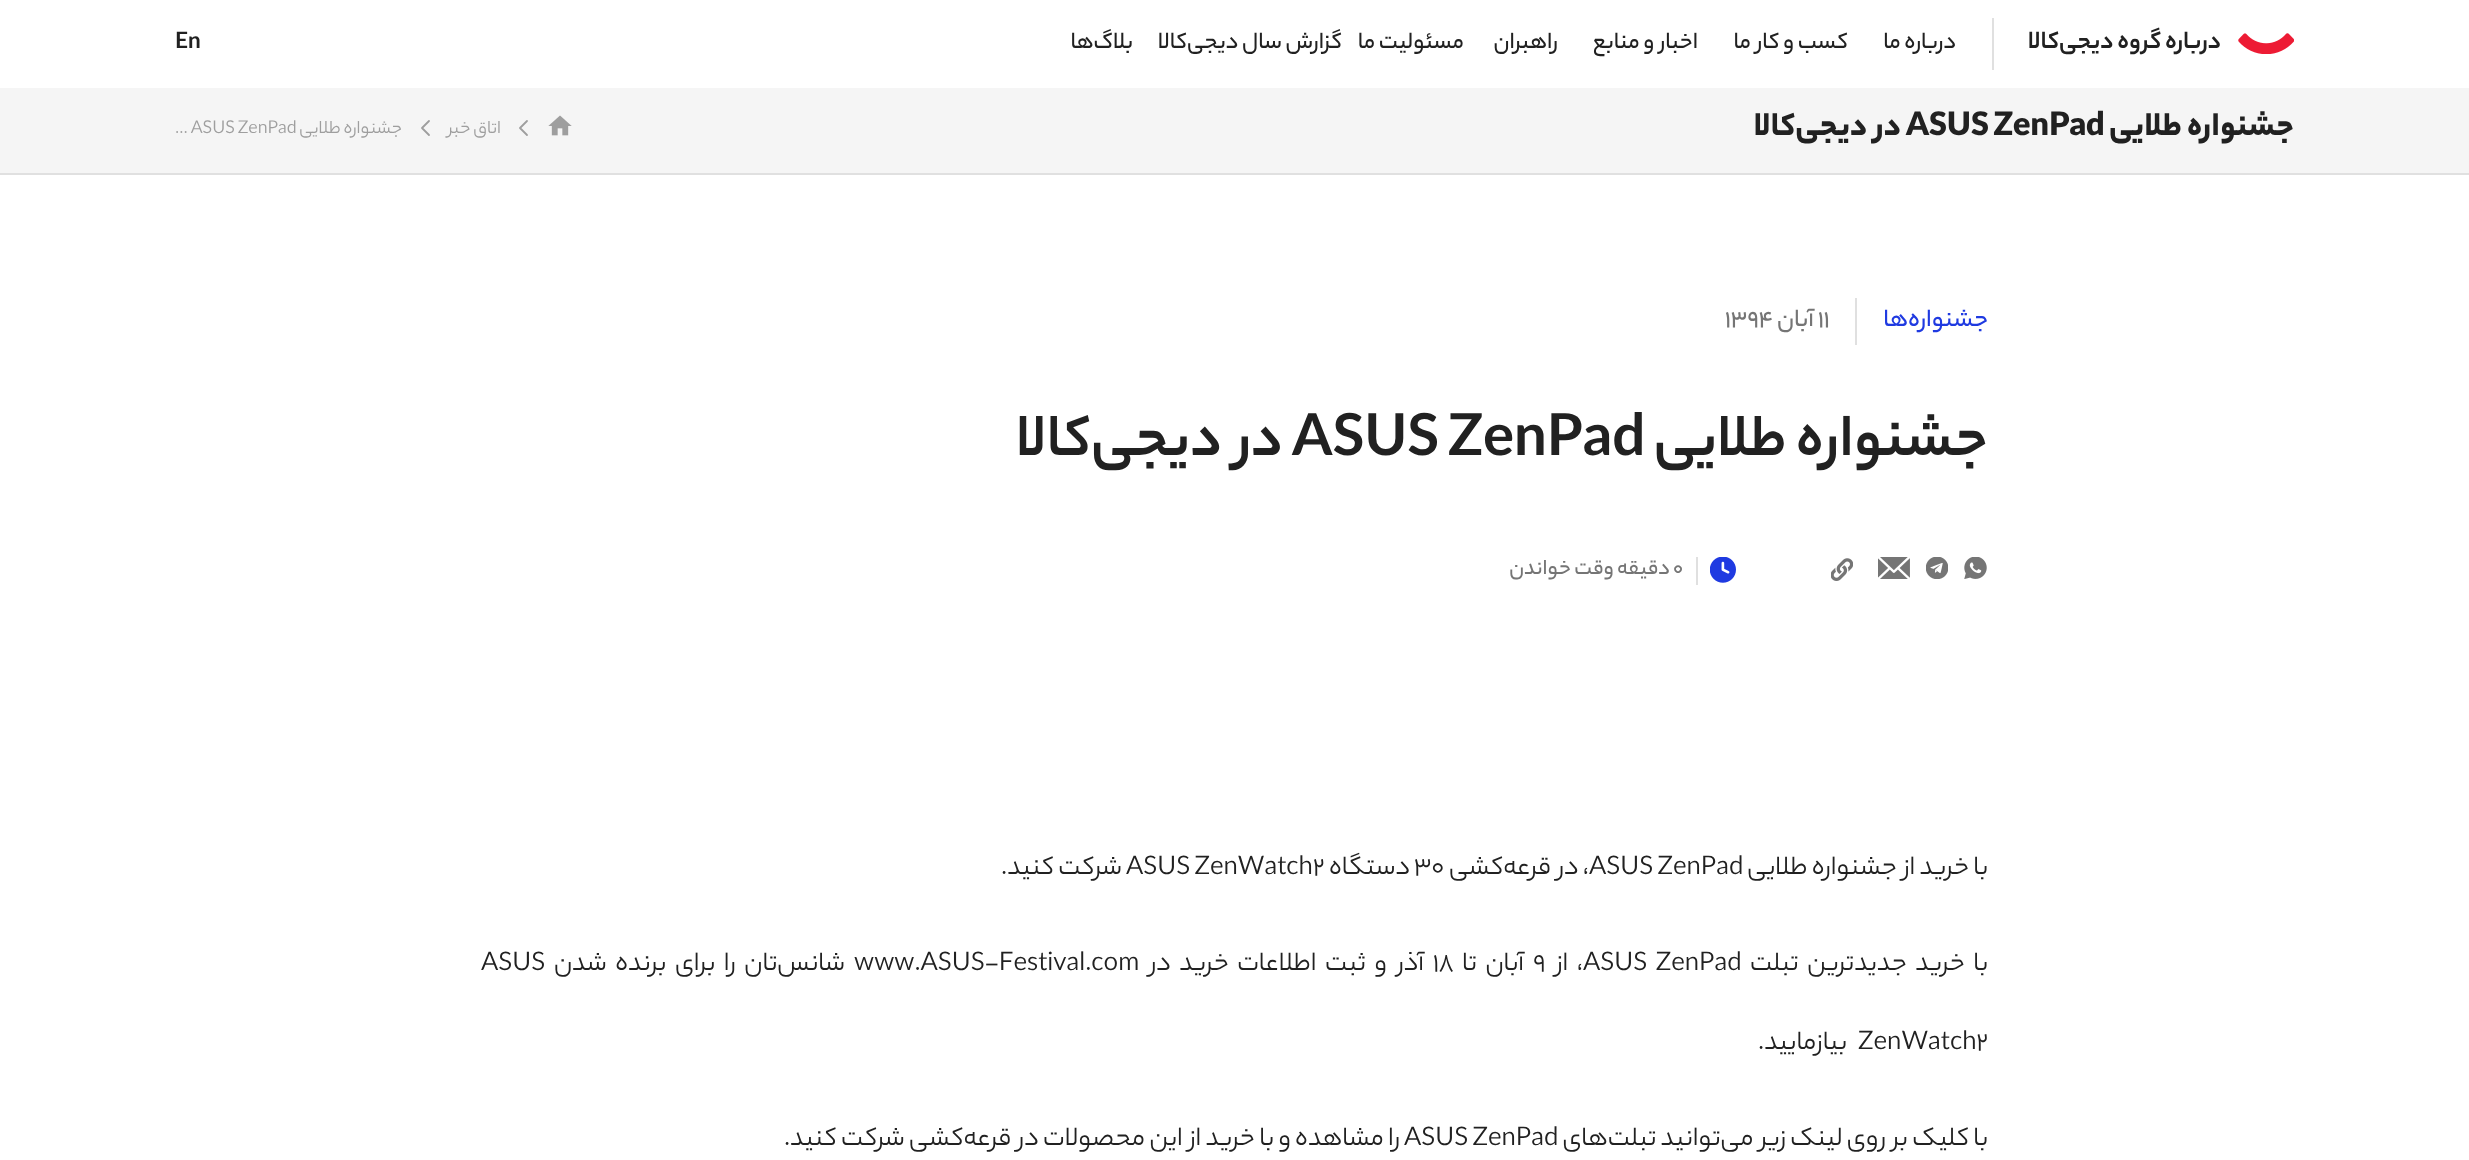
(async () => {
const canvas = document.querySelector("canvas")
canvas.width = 2469
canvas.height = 1160
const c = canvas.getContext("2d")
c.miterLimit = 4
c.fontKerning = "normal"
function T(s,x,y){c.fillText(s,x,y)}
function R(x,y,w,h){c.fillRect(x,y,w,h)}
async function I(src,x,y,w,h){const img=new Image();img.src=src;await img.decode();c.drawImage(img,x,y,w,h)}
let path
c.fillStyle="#fff"
R(0,0,2469,1160)
await I("1.png",2238,33,56,21)
c.direction="rtl"
c.font="bold 26.25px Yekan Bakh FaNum"
c.fillStyle="#212121"
T("درباره گروه دیجی‌کالا",2221,48)
c.fillStyle="#e0e0e0"
R(1992,18,2,52)
c.font="500 24.5px Yekan Bakh FaNum"
c.fillStyle="#212121"
T("درباره‌ ما",1956,48)
T("کسب و کار ما",1848,48)
T("اخبار‌ و منابع",1698,48)
T("راهبران",1558,48)
T("مسئولیت ما",1464,48)
T("گزارش سال دیجی‌کالا",1342,48)
T("بلاگ‌ها",1133,48)
c.direction="ltr"
c.font="bold 24.5px Yekan Bakh FaNum"
T("En",175,48)
c.fillStyle="#f5f5f5"
R(0,88,2469,85)
c.fillStyle="#e0e0e0"
R(0,173,2469,2)
c.direction="rtl"
c.font="900 35px Yekan Bakh FaNum"
c.fillStyle="#212121"
T("جشنواره طلایی",2294,135)
c.direction="ltr"
T("ASUS ZenPad",1906,135)
c.direction="rtl"
T("در دیجی‌کالا",1901,135)
await I("2.png",548,115,24,21)
path = new Path2D("M527 135l-7-7m7-7l-7 7")
c.strokeStyle="#9e9e9e"
c.lineWidth=1.8
c.lineCap="round"
c.stroke(path)
c.font="19.25px Yekan Bakh FaNum"
c.fillStyle="#9e9e9e"
T("اتاق خبر",501,133)
path = new Path2D("M429 135l-7-7m7-7l-7 7")
c.stroke(path)
T("جشنواره طلایی",402,133)
c.direction="ltr"
T("... ASUS ZenPad",175,133)
c.direction="rtl"
c.font="500 26.25px Yekan Bakh FaNum"
c.fillStyle="#1f3ae1"
T("جشنواره‌ها",1988,326)
c.fillStyle="#e0e0e0"
R(1855,298,2,47)
c.direction="ltr"
c.fillStyle="#757575"
T("۱۱",1818,326)
c.direction="rtl"
T("آبان",1814,326)
c.direction="ltr"
T("۱۳۹۴",1725,326)
c.direction="rtl"
c.font="bold 63px Yekan Bakh FaNum"
c.fillStyle="#212121"
T("جشنواره طلایی",1988,455)
c.direction="ltr"
T("ASUS ZenPad",1292,455)
c.direction="rtl"
T("در دیجی‌کالا",1283,455)
await I("3.png",1964,557,23,22)
await I("4.png",1926,557,22,22)
await I("5.png",1878,557,32,22)
await I("6.png",1831,558,22,23)
await I("7.png",1710,557,26,26)
c.fillStyle="#e0e0e0"
R(1696,557,2,28)
c.direction="ltr"
c.font="500 22.75px Yekan Bakh FaNum"
c.fillStyle="#757575"
T("0",1673,574)
c.direction="rtl"
T("دقیقه وقت خواندن",1670,574)
c.font="28px Yekan Bakh FaNum"
c.fillStyle="#212121"
T("با خرید از جشنواره طلایی",1988,874)
c.direction="ltr"
T("ASUS ZenPad",1589,874)
c.direction="rtl"
T("، در قرعه‌کشی",1589,874)
c.direction="ltr"
T("۳۰",1414,874)
c.direction="rtl"
T("دستگاه",1410,874)
c.direction="ltr"
T("ASUS ZenWatch2",1126,874)
c.direction="rtl"
T("شرکت کنید.",1122,874)
c.wordSpacing="4.25px"
T("با خرید جدیدترین تبلت",1988,970)
c.direction="ltr"
T("ASUS ZenPad",1583,970)
c.direction="rtl"
T("، از",1583,970)
c.wordSpacing="0px"
c.direction="ltr"
T("۹",1533,970)
c.wordSpacing="4.25px"
c.direction="rtl"
T("آبان تا",1524,970)
c.wordSpacing="0px"
c.direction="ltr"
T("۱۸",1433,970)
c.wordSpacing="4.25px"
c.direction="rtl"
T("آذر و ثبت اطلاعات خرید در",1424,970)
c.wordSpacing="0px"
c.direction="ltr"
T("www.ASUS-Festival.com",854,970)
c.wordSpacing="4.25px"
c.direction="rtl"
T("شانس‌تان را برای برنده شدن",845,970)
c.wordSpacing="0px"
c.direction="ltr"
T("ASUS",481,970)
T("ZenWatch2",1858,1049)
c.direction="rtl"
T("بیازمایید.",1847,1049)
T("با کلیک بر روی لینک زیر می‌توانید تبلت‌های",1988,1145)
c.direction="ltr"
T("ASUS ZenPad",1404,1145)
c.direction="rtl"
T("را مشاهده و با خرید از این محصولات در قرعه‌کشی شرکت کنید.",1400,1145)
})()
